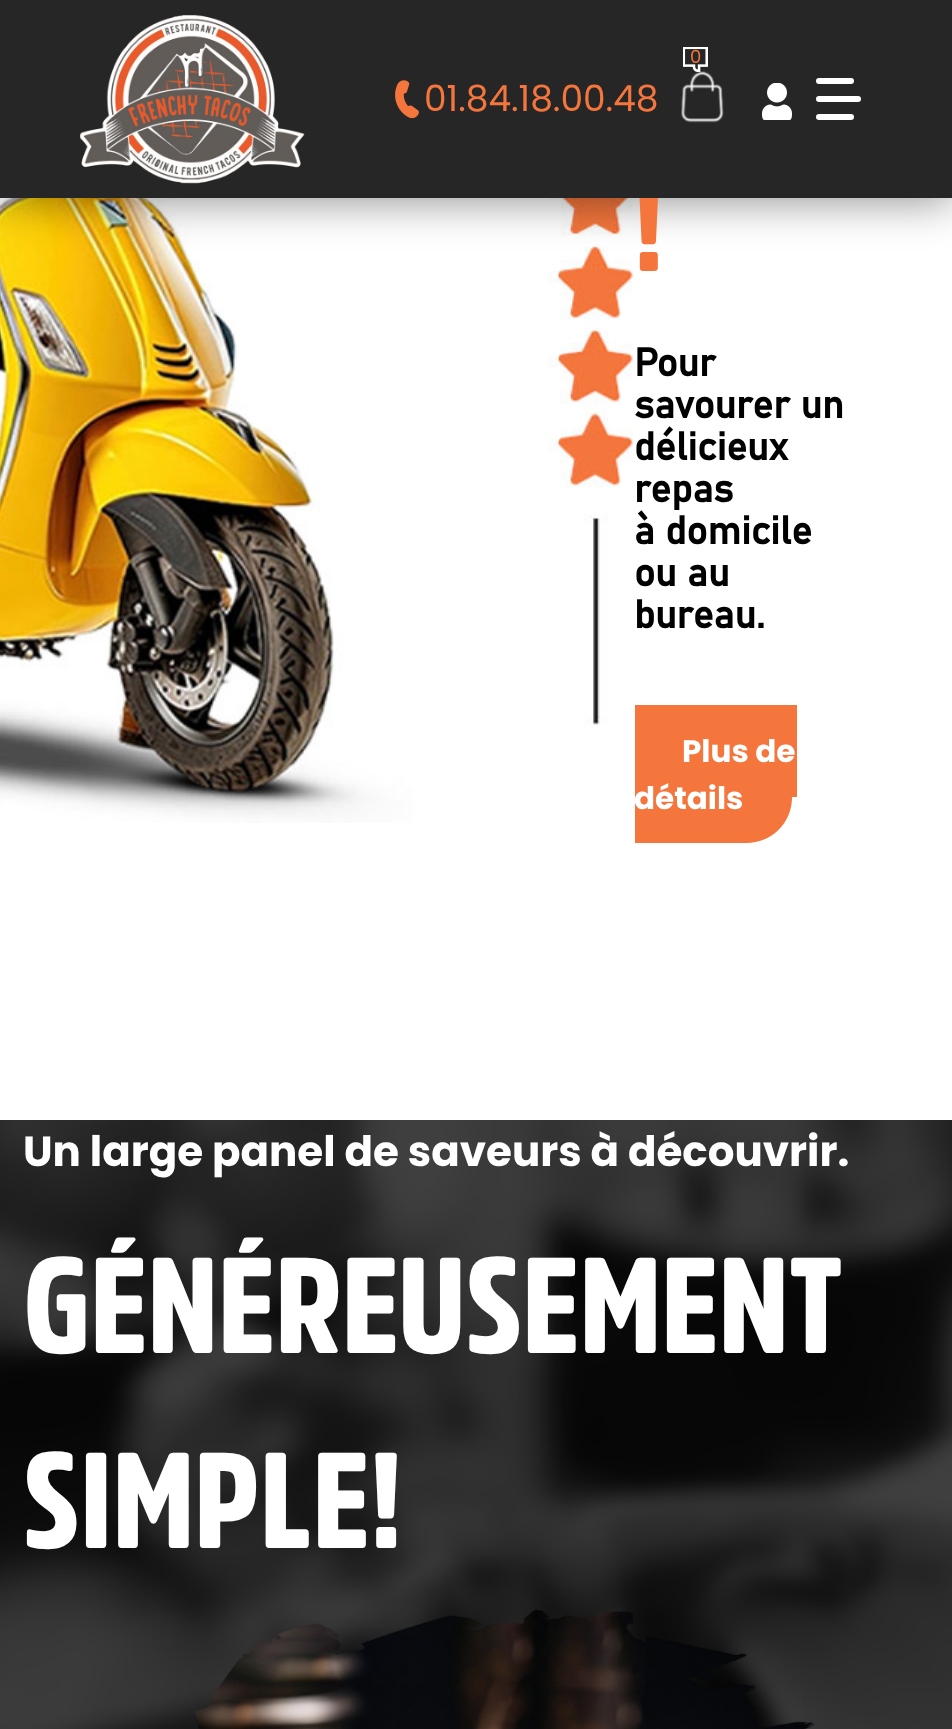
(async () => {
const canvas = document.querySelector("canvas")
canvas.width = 952
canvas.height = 1729
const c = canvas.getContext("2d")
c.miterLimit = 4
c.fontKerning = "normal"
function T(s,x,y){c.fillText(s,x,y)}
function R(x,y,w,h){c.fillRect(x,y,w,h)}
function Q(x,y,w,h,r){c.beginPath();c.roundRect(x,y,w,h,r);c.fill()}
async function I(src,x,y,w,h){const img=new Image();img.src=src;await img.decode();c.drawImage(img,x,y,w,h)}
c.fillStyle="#fff"
R(0,0,952,1729)
await I("6.png",0,198,633,625)
c.fillStyle="#00000073"
c.filter="blur(22.5px)"
c.beginPath()
c.rect(-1,-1,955,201)
c.fill()
c.filter="none"
c.font="900 122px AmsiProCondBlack"
c.fillStyle="#f4763d"
T("!",634,271)
c.fillStyle="#262626"
R(0,0,952,198)
await I("1.png",80,15,225,169)
await I("2.png",683,47,25,25)
c.font="18px Poppins"
c.fillStyle="#f4763d"
T("0",690,63)
await I("3.png",681,71,43,52)
await I("4.png",762,83,30,37)
c.fillStyle="#fff"
Q(816,78,38,6,3)
Q(816,96,45,6,3)
Q(816,114,38,6,3)
await I("5.png",395,80,24,39)
c.font="36px Poppins"
c.fillStyle="#f4763d"
T("01.84.18.00.48",424,111)
c.font="bold 39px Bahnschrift"
c.fillStyle="#000"
T("Pour",634,376)
T("savourer un",634,418)
T("délicieux",634,460)
T("repas",634,502)
T("à domicile",634,544)
T("ou au",634,586)
T("bureau.",634,628)
c.fillStyle="#f4763d"
R(635,705,162,92)
c.beginPath()
c.roundRect(635,752,157,91,[0,45.5,45.5,0])
c.fill()
c.font="bold 31px Poppins"
c.fillStyle="#fff"
T("Plus de",682,762)
T("détails",634,809)
await I("7.png",0,1120,952,609)
c.font="bold 42px Poppins"
T("Un large panel de saveurs à découvrir.",23,1166)
c.font="900 135px AmsiProCondBlack"
T("GÉNÉREUSEMENT",23,1353)
T("SIMPLE!",23,1548)
await I("8.png",194,1609,621,120)
})()
